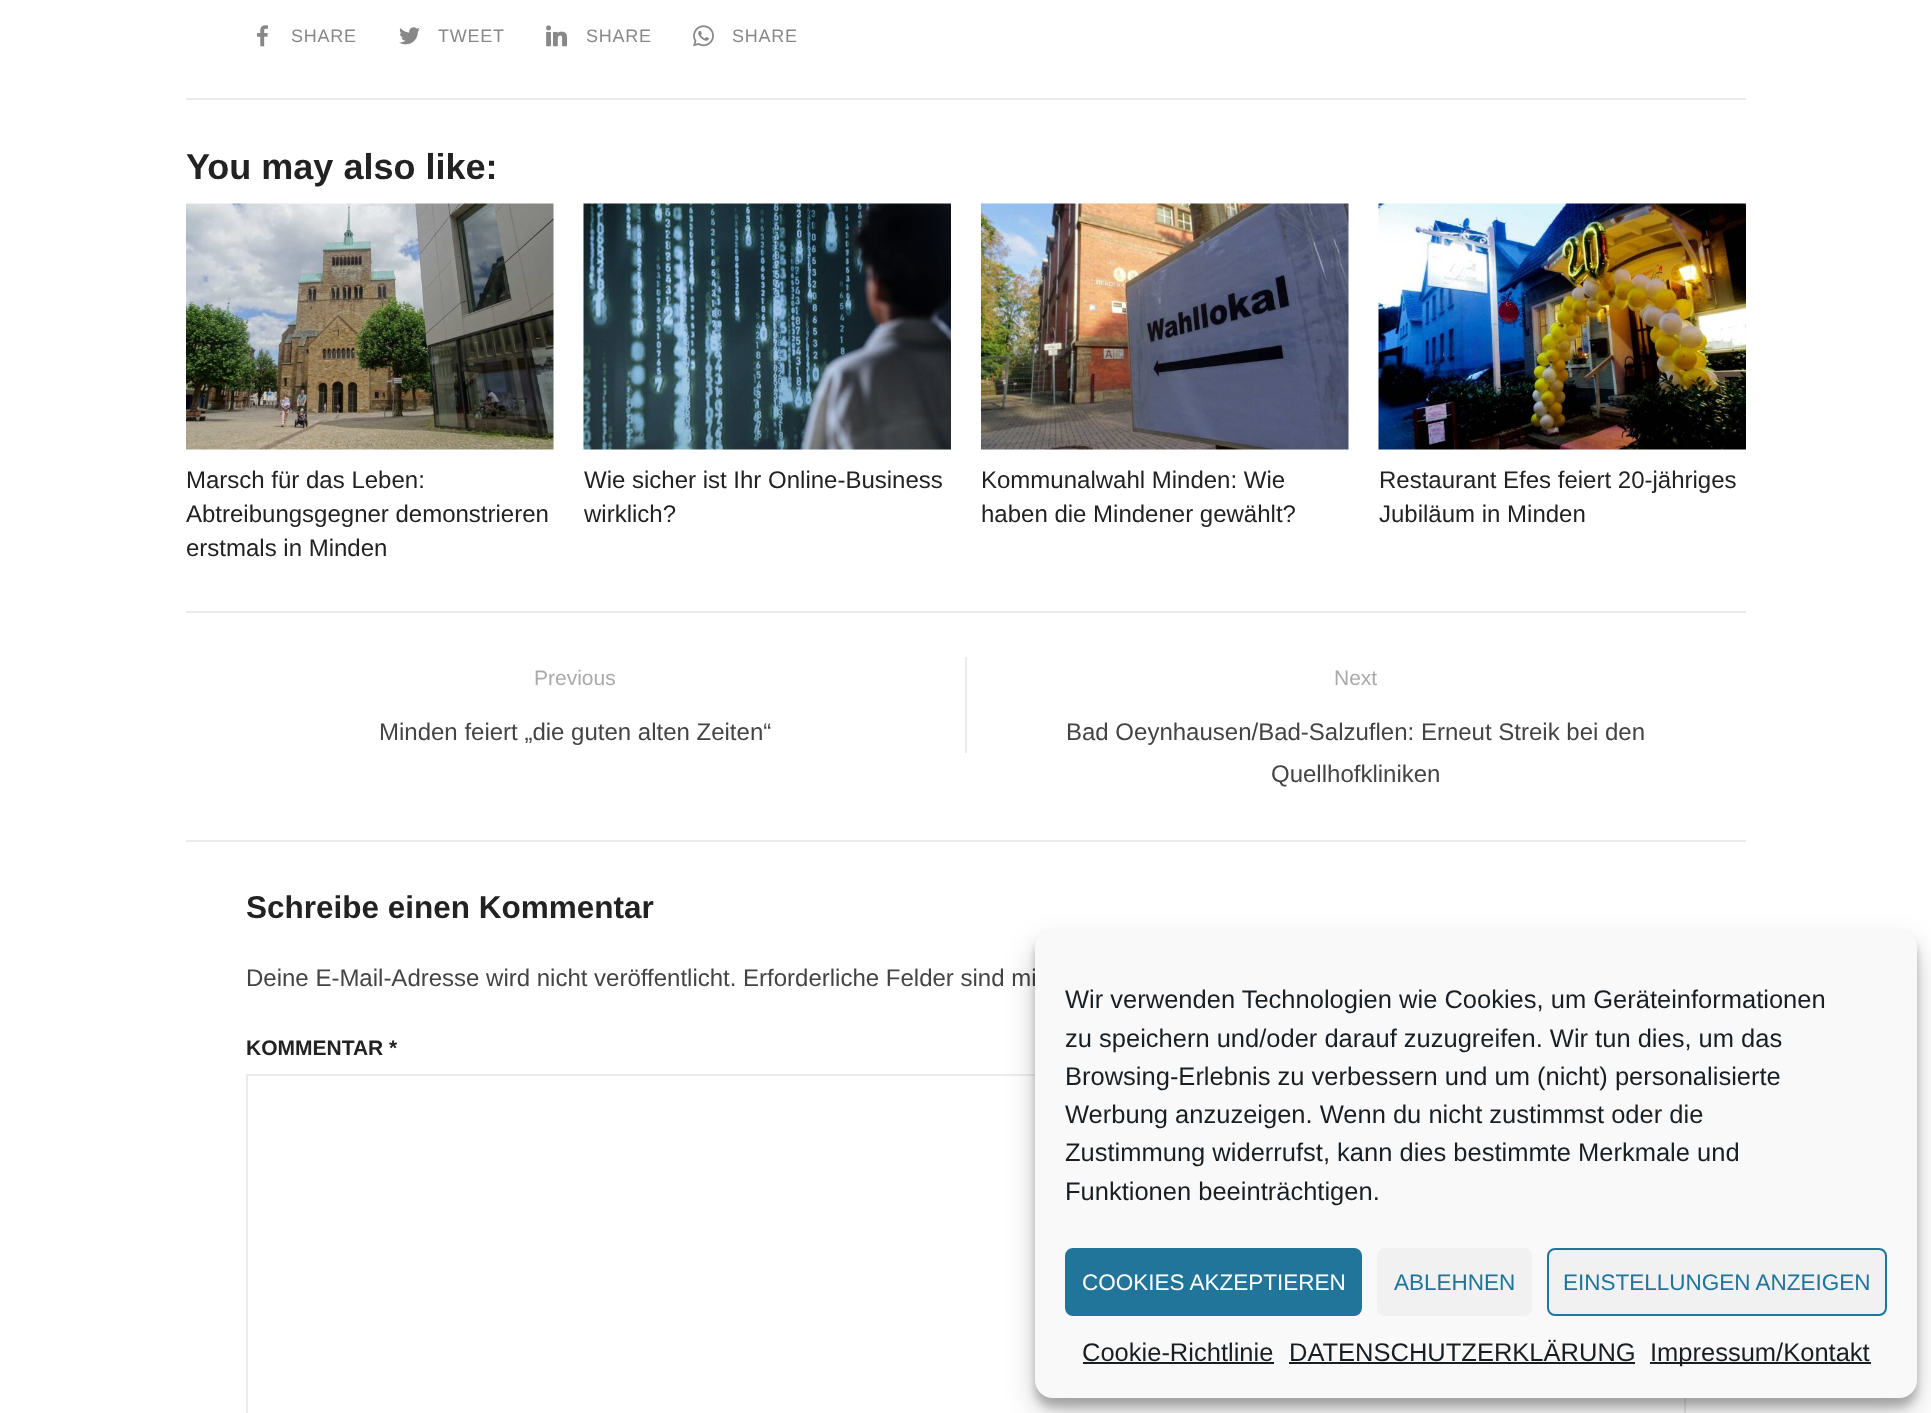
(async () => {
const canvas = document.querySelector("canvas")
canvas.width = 1931
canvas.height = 1413
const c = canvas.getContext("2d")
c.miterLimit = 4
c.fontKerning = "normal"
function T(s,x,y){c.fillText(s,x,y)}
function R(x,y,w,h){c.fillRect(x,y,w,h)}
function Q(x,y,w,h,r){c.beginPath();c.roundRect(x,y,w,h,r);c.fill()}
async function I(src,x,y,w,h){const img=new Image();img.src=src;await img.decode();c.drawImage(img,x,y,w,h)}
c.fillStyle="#fff"
R(0,0,1931,1413)
c.fillStyle="#ebebeb"
R(186,98,1560,2)
await I("1.png",257,25,11,22)
c.letterSpacing="0.75px"
c.font="18px Liberation Sans"
c.fillStyle="#888"
T("SHARE",291,42)
await I("2.png",399,27,21,18)
T("TWEET",438,42)
await I("3.png",546,25,21,22)
T("SHARE",586,42)
await I("4.png",693,25,21,22)
T("SHARE",732,42)
c.fillStyle="#ebebeb"
R(186,611,1560,2)
c.letterSpacing="0px"
c.font="bold 36px Liberation Sans"
c.fillStyle="#222"
T("You may also like:",186,179)
await I("5.png",186,203,368,247)
c.font="24px Liberation Sans"
T("Marsch für das Leben:",186,488)
T("Abtreibungsgegner demonstrieren",186,522)
T("erstmals in Minden",186,556)
await I("6.png",583,203,368,247)
T("Wie sicher ist Ihr Online-Business",584,488)
T("wirklich?",584,522)
await I("7.png",981,203,368,247)
T("Kommunalwahl Minden: Wie",981,488)
T("haben die Mindener gewählt?",981,522)
await I("8.png",1378,203,368,247)
T("Restaurant Efes feiert 20-jähriges",1379,488)
T("Jubiläum in Minden",1379,522)
c.fillStyle="#ebebeb"
R(186,840,1560,2)
R(965,657,2,96)
c.font="21px Liberation Sans"
c.fillStyle="#aaa"
T("Previous",534,685)
c.font="24px Liberation Sans"
c.fillStyle="#444"
T("Minden feiert „die guten alten Zeiten“",379,740)
c.font="21px Liberation Sans"
c.fillStyle="#aaa"
T("Next",1334,685)
c.font="24px Liberation Sans"
c.fillStyle="#444"
T("Bad Oeynhausen/Bad-Salzuflen: Erneut Streik bei den",1066,740)
T("Quellhofkliniken",1271,782)
c.font="bold 31.5px Liberation Sans"
c.fillStyle="#222"
T("Schreibe einen Kommentar",246,918)
c.font="24px Liberation Sans"
c.fillStyle="#444"
T("Deine E-Mail-Adresse wird nicht veröffentlicht. Erforderliche Felder sind mi",246,986)
c.font="bold 21px Liberation Sans"
c.fillStyle="#222"
T("KOMMENTAR *",246,1055)
c.strokeStyle="#ebebeb"
c.lineWidth=2
c.strokeRect(247,1075,1438,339)
c.fillStyle="#0000003b"
c.filter="blur(4.5px)"
c.beginPath()
c.roundRect(1035,938,882,469,18)
c.fill()
c.filter="none"
c.fillStyle="#00000030"
c.filter="blur(15px)"
c.beginPath()
c.roundRect(1035,944,882,469,18)
c.fill()
c.filter="none"
c.fillStyle="#f9f9f9"
Q(1035,929,882,469,18)
c.font="25.5px Liberation Sans"
c.fillStyle="#191e23"
T("Wir verwenden Technologien wie Cookies, um Geräteinformationen",1065,1008)
T("zu speichern und/oder darauf zuzugreifen. Wir tun dies, um das",1065,1047)
T("Browsing-Erlebnis zu verbessern und um (nicht) personalisierte",1065,1085)
T("Werbung anzuzeigen. Wenn du nicht zustimmst oder die",1065,1123)
T("Zustimmung widerrufst, kann dies bestimmte Merkmale und",1065,1161)
T("Funktionen beeinträchtigen.",1065,1200)
c.fillStyle="#21759b"
c.beginPath()
c.roundRect(1066,1249,295,66,7)
c.fill()
c.strokeStyle="#21759b"
c.stroke()
c.font="22.5px Liberation Sans"
c.fillStyle="#fff"
T("COOKIES AKZEPTIEREN",1082,1290)
c.fillStyle="#f1f1f1"
Q(1377,1248,155,68,8)
c.fillStyle="#21759b"
T("ABLEHNEN",1394,1290)
c.fillStyle="#f1f1f1"
c.beginPath()
c.roundRect(1548,1249,338,66,7)
c.fill()
c.stroke()
c.fillStyle="#21759b"
T("EINSTELLUNGEN ANZEIGEN",1563,1290)
c.font="25.5px Liberation Sans"
c.fillStyle="#191e23"
T("Cookie-Richtlinie",1082,1361)
R(1083,1362,191,2)
T("DATENSCHUTZERKLÄRUNG",1289,1361)
R(1289,1362,346,2)
R(1650,1362,221,2)
T("Impressum/Kontakt",1650,1361)
})()
